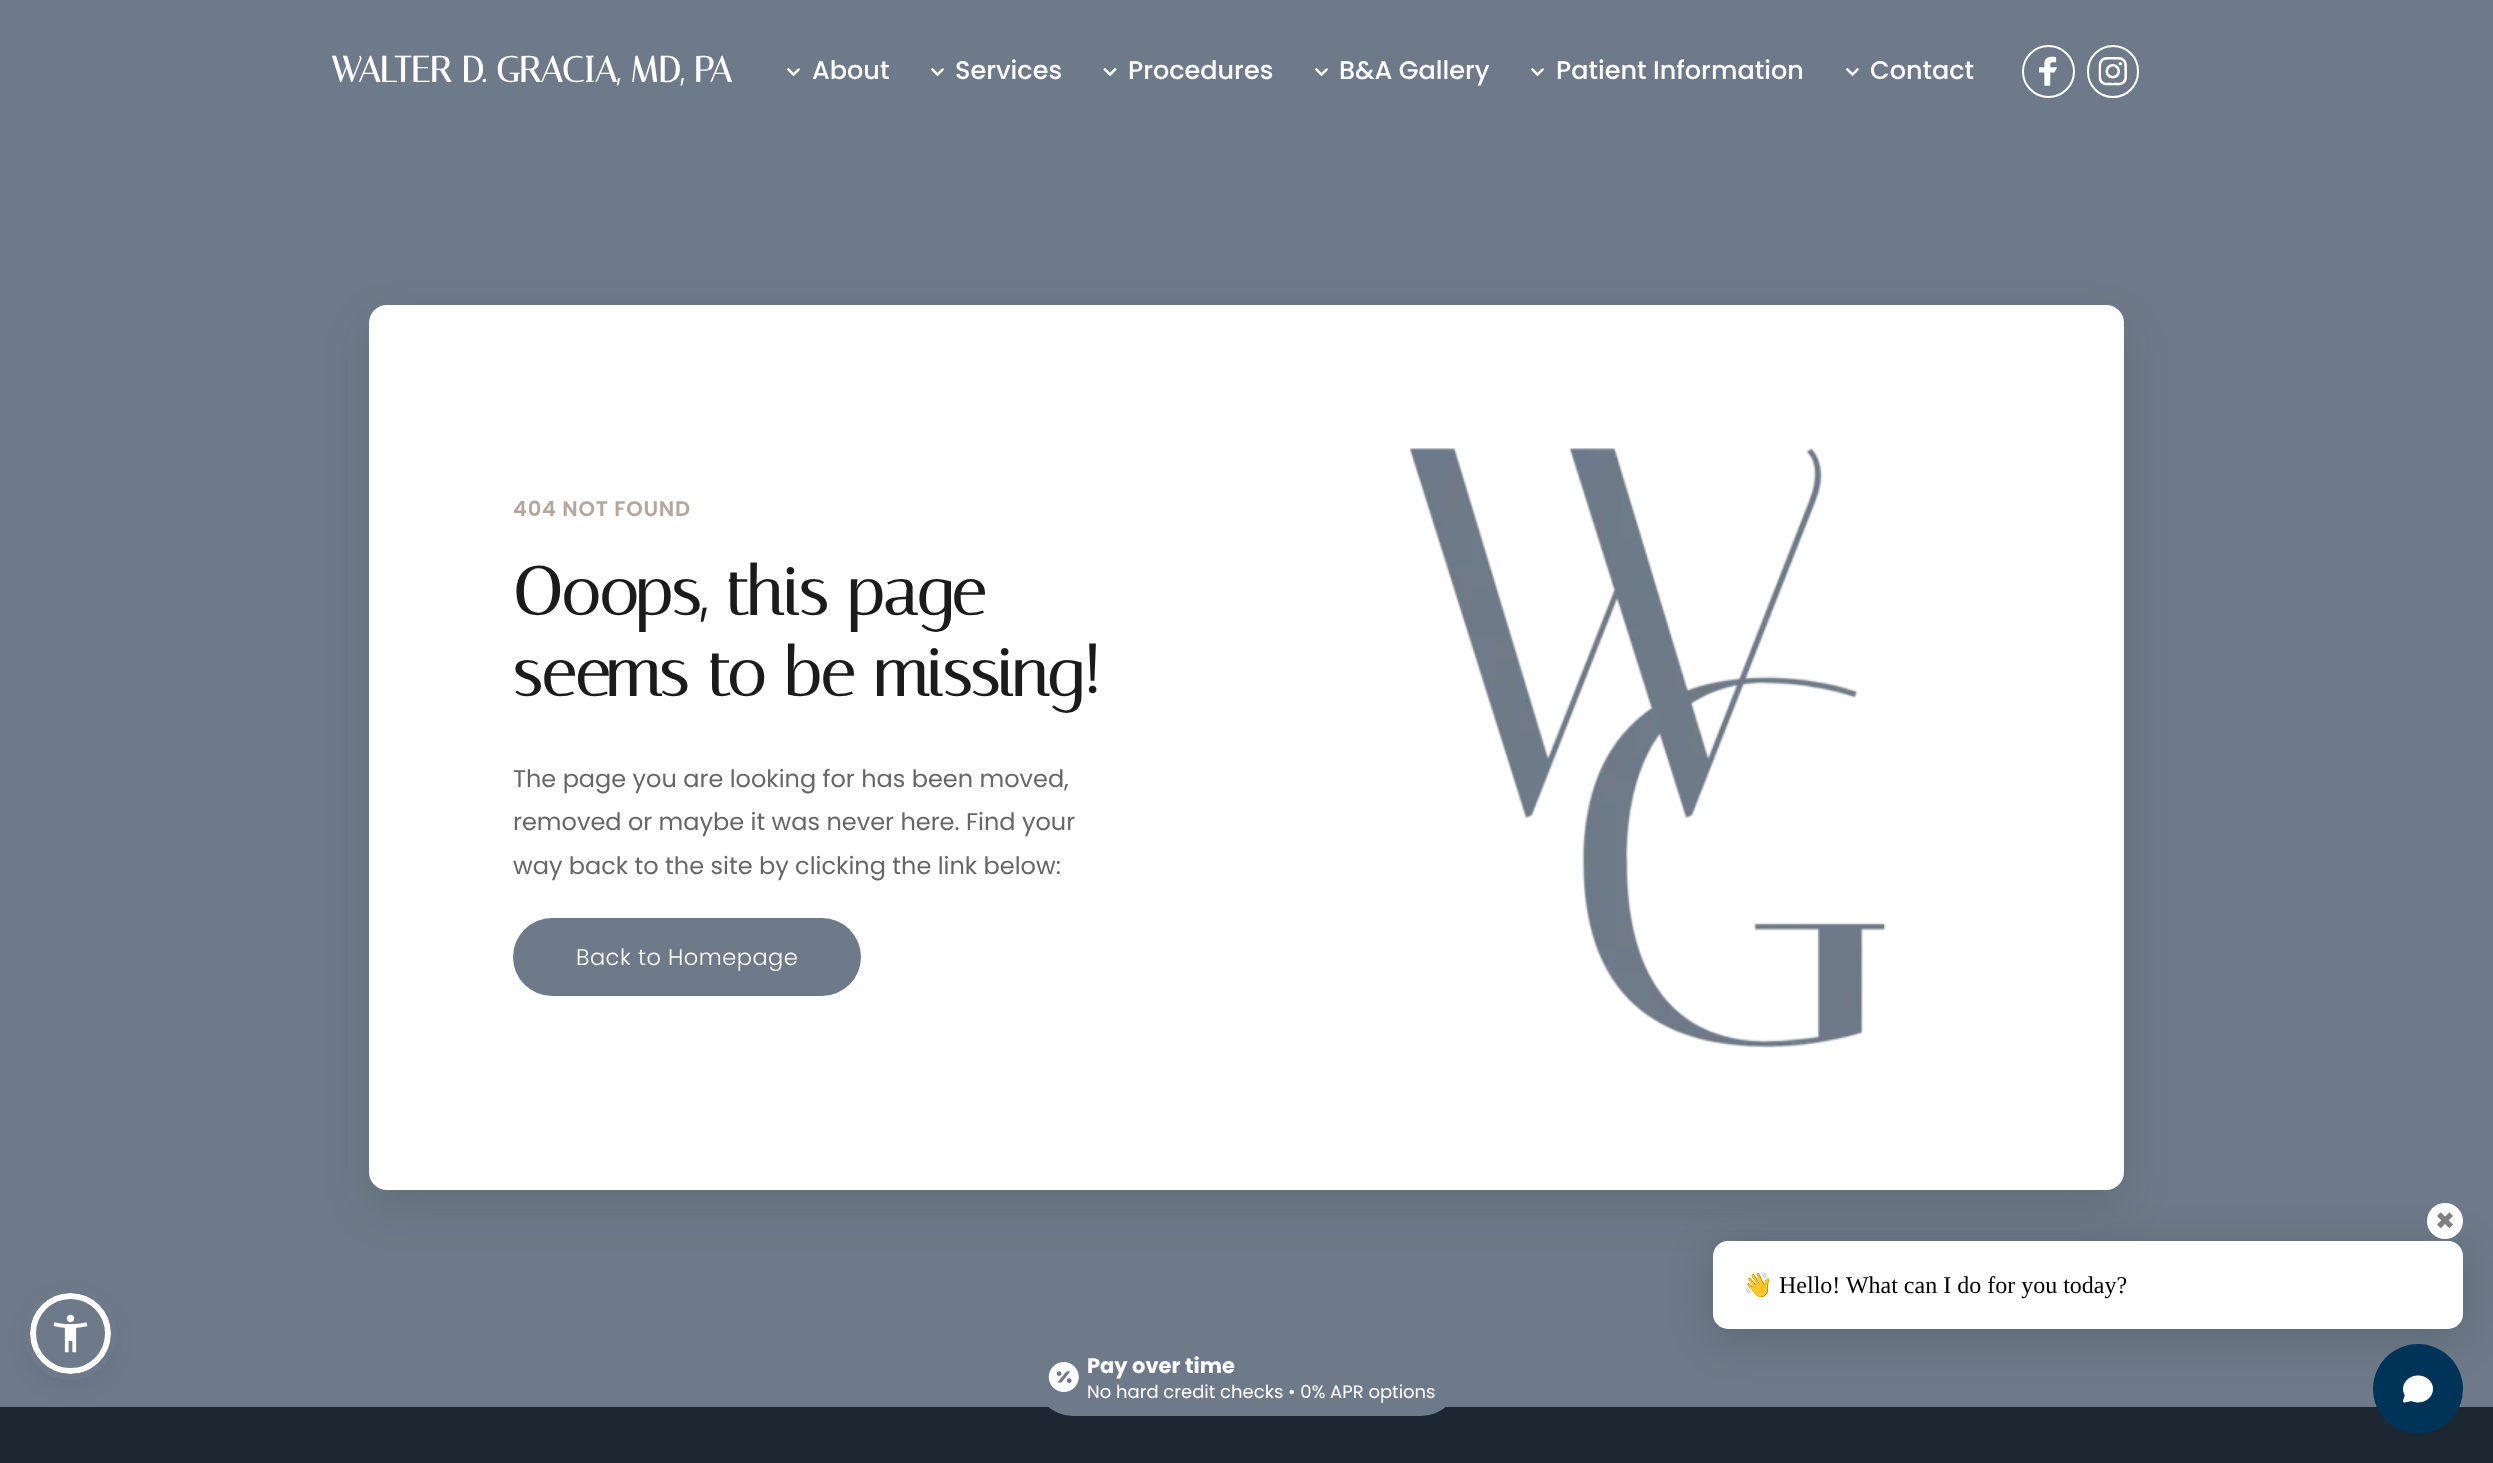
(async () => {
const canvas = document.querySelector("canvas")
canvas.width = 2493
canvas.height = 1463
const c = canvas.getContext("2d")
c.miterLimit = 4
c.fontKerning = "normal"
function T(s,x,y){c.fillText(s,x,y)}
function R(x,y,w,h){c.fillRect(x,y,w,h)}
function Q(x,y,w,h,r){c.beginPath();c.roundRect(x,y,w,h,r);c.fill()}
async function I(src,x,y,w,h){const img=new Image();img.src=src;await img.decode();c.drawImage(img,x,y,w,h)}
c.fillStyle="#6e7a89"
R(0,0,2493,1463)
c.letterSpacing="-0.3px"
c.font="bold 36px Italiana"
c.fillStyle="#fff"
T("WALTER D. GRACIA, MD, PA",331,82)
await I("1.png",786,67,15,9)
c.letterSpacing="0px"
c.font="500 25.5px Poppins"
T("About",812,79)
await I("1.png",930,67,15,9)
T("Services",955,79)
await I("2.png",1103,67,14,9)
T("Procedures",1128,79)
await I("1.png",1314,67,15,9)
T("B&A Gallery",1339,79)
await I("1.png",1530,67,15,9)
T("Patient Information",1556,79)
await I("1.png",1845,67,15,9)
T("Contact",1870,79)
c.beginPath()
c.arc(2048.5,71.5,25.5,0,7)
c.strokeStyle="#fff"
c.lineWidth=2
c.stroke()
await I("3.png",2039,56,18,30)
c.beginPath()
c.roundRect(2088,46,50,51,25)
c.stroke()
await I("4.png",2098,57,29,29)
c.fillStyle="#1b1b1b1f"
c.filter="blur(22.5px)"
c.beginPath()
c.roundRect(369,324,1755,885,18)
c.fill()
c.filter="none"
c.fillStyle="#fff"
Q(369,305,1755,885,18)
c.letterSpacing="0.75px"
c.font="600 21px Poppins"
c.fillStyle="#b3a79e"
T("404 NOT FOUND",513,516)
c.letterSpacing="0px"
c.font="bold 67.5px Italiana"
c.fillStyle="#1b1b1b"
T("Ooops, this page",513,615)
T("seems to be missing!",513,696)
c.font="24px Poppins"
c.fillStyle="#666"
T("The page you are looking for has been moved,",513,787)
T("removed or maybe it was never here. Find your",513,830)
T("way back to the site by clicking the link below:",513,874)
c.fillStyle="#6e7a89"
Q(513,918,348,78,39)
c.letterSpacing="0.5px"
c.font="300 22.5px Poppins"
c.fillStyle="#fff"
T("Back to Homepage",576,965)
await I("5.png",1408,448,478,600)
c.fillStyle="#1c2732"
R(0,1407,2493,56)
c.fillStyle="#00000029"
c.filter="blur(22.5px)"
c.beginPath()
c.roundRect(1713,1248,750,89,15)
c.fill()
c.filter="none"
c.fillStyle="#fff"
Q(1713,1241,750,88,15)
c.beginPath()
c.arc(2445,1221,18,0,7)
c.fill()
c.letterSpacing="0px"
c.font="24px DejaVu Sans"
c.fillStyle="#808080"
T("✖",2435,1229)
c.font="24px Noto Color Emoji"
c.fillStyle="#000"
T("👋",1743,1293)
c.font="24px Liberation Serif"
T("Hello! What can I do for you today?",1779,1293)
c.fillStyle="#252c6126"
c.filter="blur(11px)"
c.beginPath()
c.roundRect(30,1301,81,81,40.5)
c.fill()
c.filter="none"
c.fillStyle="#6e7a89"
c.beginPath()
c.arc(70.5,1333.5,37.5,0,7)
c.fill()
c.lineWidth=6
c.stroke()
c.beginPath()
c.arc(70.5,1333.5,43.5,0,7)
c.strokeStyle="#6e7a89"
c.stroke()
await I("6.png",53,1314,35,39)
Q(1034,1338,426,78,39)
await I("7.png",1048,1362,31,30)
c.font="bold 21px Poppins"
c.fillStyle="#fff"
T("Pay over time",1087,1373)
c.font="18px Poppins"
T("No hard credit checks • 0% APR options",1087,1398)
c.fillStyle="#003358"
c.beginPath()
c.arc(2418,1389,45,0,7)
c.fill()
await I("8.png",2403,1375,30,28)
})()
